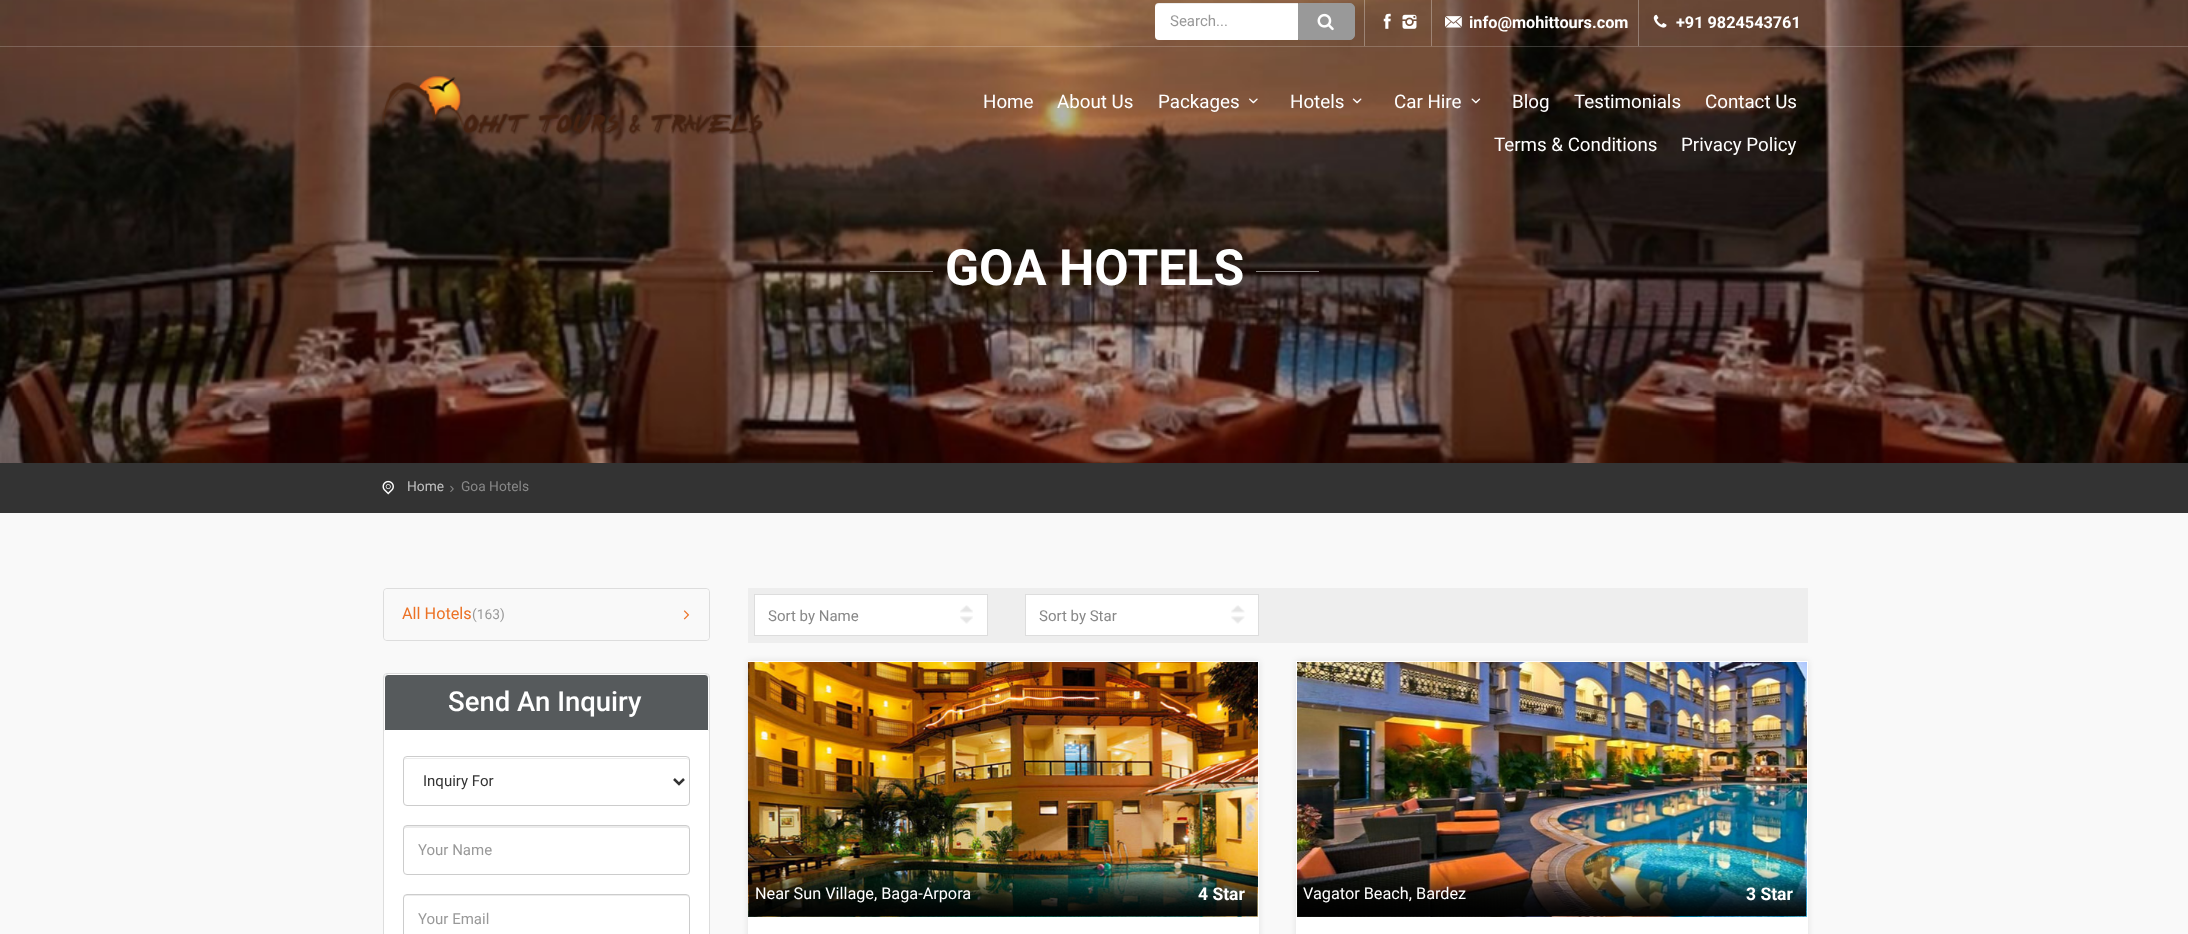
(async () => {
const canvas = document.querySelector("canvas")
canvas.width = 2188
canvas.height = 934
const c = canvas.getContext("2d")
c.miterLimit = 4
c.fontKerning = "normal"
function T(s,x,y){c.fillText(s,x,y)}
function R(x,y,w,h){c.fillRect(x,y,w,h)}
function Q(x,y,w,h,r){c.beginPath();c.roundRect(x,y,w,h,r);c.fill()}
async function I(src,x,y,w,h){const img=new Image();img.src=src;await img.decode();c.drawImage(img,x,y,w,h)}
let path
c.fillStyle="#f9f9f9"
R(0,0,2188,934)
await I("1.png",0,0,2188,463)
c.fillStyle="#ffffff33"
R(0,46,2188,1)
c.fillStyle="#fff"
c.beginPath()
c.roundRect(1155,3,143,37,[4,0,0,4])
c.fill()
c.fillStyle="#00000012"
path = new Path2D("M1159 4h139v-1h-139c-2 0-4 2-4 4v1c0-3 2-4 4-4z")
c.fill(path)
c.font="15px Roboto"
c.fillStyle="#999"
T("Search...",1170,26)
c.beginPath()
c.roundRect(1298.5,3.5,56,36,[0,4.5,4.5,0])
c.fill()
c.strokeStyle="#999"
c.stroke()
await I("2.png",1317,13,17,18)
c.fillStyle="#ffffff4d"
R(1364,0,1,46)
await I("3.png",1383,13,8,16)
await I("4.png",1402,14,15,15)
R(1431,0,1,46)
await I("5.png",1445,16,17,12)
c.font="bold 16.25px Roboto"
c.fillStyle="#fff"
T("info@mohittours.com",1469,28)
c.fillStyle="#ffffff4d"
R(1638,0,1,46)
await I("6.png",1653,14,14,14)
c.fillStyle="#fff"
T("+91 9824543761",1676,28)
await I("7.png",382,76,382,59)
c.font="18.75px Roboto"
T("Home",983,108)
T("About Us",1057,108)
T("Packages",1158,108)
await I("8.png",1249,98,9,6)
T("Hotels",1290,108)
await I("9.png",1352,98,10,6)
T("Car Hire",1394,108)
await I("10.png",1471,98,10,6)
T("Blog",1512,108)
T("Testimonials",1574,108)
T("Contact Us",1705,108)
T("Terms & Conditions",1494,151)
T("Privacy Policy",1681,151)
c.fillStyle="#ffffff80"
R(870,271,63,1)
c.font="bold 50px Roboto"
c.fillStyle="#fff"
T("GOA HOTELS",945,285)
c.fillStyle="#ffffff80"
R(1256,271,63,1)
c.fillStyle="#333"
R(0,463,2188,50)
await I("11.png",382,480,12,15)
c.font="13.75px Roboto"
c.fillStyle="#c2c2c2"
T("Home",407,491)
await I("12.png",450,485,4,7)
c.fillStyle="#888"
T("Goa Hotels",461,491)
c.fillStyle="#fff"
c.beginPath()
c.roundRect(383.5,588.5,326,52,3.5)
c.fill()
c.strokeStyle="#ddd"
c.stroke()
c.fillStyle="#f9f9f9"
Q(384,589,325,51,4)
c.font="16.25px Roboto"
c.fillStyle="#ec7225"
T("All Hotels",402,619)
c.font="13.75px Roboto"
c.fillStyle="#999"
T("(163)",472,619)
await I("13.png",683,610,7,10)
c.fillStyle="#fff"
c.beginPath()
c.roundRect(383.5,673.5,326,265,3.5)
c.fill()
c.stroke()
c.fillStyle="#565a5c"
c.beginPath()
c.roundRect(384.5,674.5,324,56,[3.5,3.5,0,0])
c.fill()
c.strokeStyle="#fff"
c.stroke()
c.font="500 27.5px Roboto"
c.fillStyle="#fff"
T("Send An Inquiry",448,711)
c.fillStyle="#ececec"
path = new Path2D("M406 759h280c2 0 3 1 3 2c0-2-1-3-3-3h-280c-1 0-2 1-2 3c0-1 1-2 2-2z")
c.fill(path)
c.beginPath()
c.roundRect(403.5,756.5,286,49,3.5)
c.strokeStyle="#ccc"
c.stroke()
path = new Path2D("M674 779l5 5l5-5")
c.strokeStyle="#333"
c.lineWidth=2.5
c.stroke(path)
c.font="15px Roboto"
c.fillStyle="#333"
T("Inquiry For",423,786)
c.fillStyle="#ececec"
path = new Path2D("M406 828h280c2 0 3 1 3 2c0-2 0-4-3-4h-280c-2 0-2 2-2 4c0-1 1-2 2-2z")
c.fill(path)
c.beginPath()
c.roundRect(403.5,825.5,286,49,3.5)
c.strokeStyle="#ccc"
c.lineWidth=1
c.stroke()
c.fillStyle="#999"
T("Your Name",418,855)
c.fillStyle="#ececec"
path = new Path2D("M406 896h280c2 0 3 1 3 3c0-2 0-4-3-4h-280c-2 0-2 2-2 4c0-2 1-3 2-3z")
c.fill(path)
c.beginPath()
c.roundRect(403.5,894.5,286,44,3.5)
c.stroke()
c.fillStyle="#999"
T("Your Email",418,924)
c.fillStyle="#eee"
R(748,588,1060,55)
c.fillStyle="#fff"
R(755,595,232,40)
await I("14.png",960,605,13,19)
c.strokeStyle="#ddd"
c.strokeRect(754.5,594.5,233,41)
c.fillStyle="#888"
T("Sort by Name",768,621)
c.fillStyle="#fff"
R(1026,595,232,40)
await I("15.png",1231,605,14,19)
c.strokeRect(1025.5,594.5,233,41)
c.fillStyle="#888"
T("Sort by Star",1039,621)
c.fillStyle="#0000001a"
c.filter="blur(3px)"
c.beginPath()
c.rect(748,661,511,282)
c.fill()
c.filter="none"
c.fillStyle="#fff"
R(748,661,511,273)
await I("16.png",748,662,510,255)
await I("17.png",748,869,510,48)
c.font="16.25px Roboto"
T("Near Sun Village, Baga-Arpora",755,899)
c.font="bold 17.5px Roboto"
T("4 Star",1198,900)
c.fillStyle="#0000001a"
c.filter="blur(3px)"
c.beginPath()
c.rect(1296,661,512,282)
c.fill()
c.filter="none"
c.fillStyle="#fff"
R(1296,661,512,273)
await I("18.png",1297,662,510,255)
await I("19.png",1297,869,510,48)
c.font="16.25px Roboto"
T("Vagator Beach, Bardez",1303,899)
c.font="bold 17.5px Roboto"
T("3 Star",1746,900)
})()
